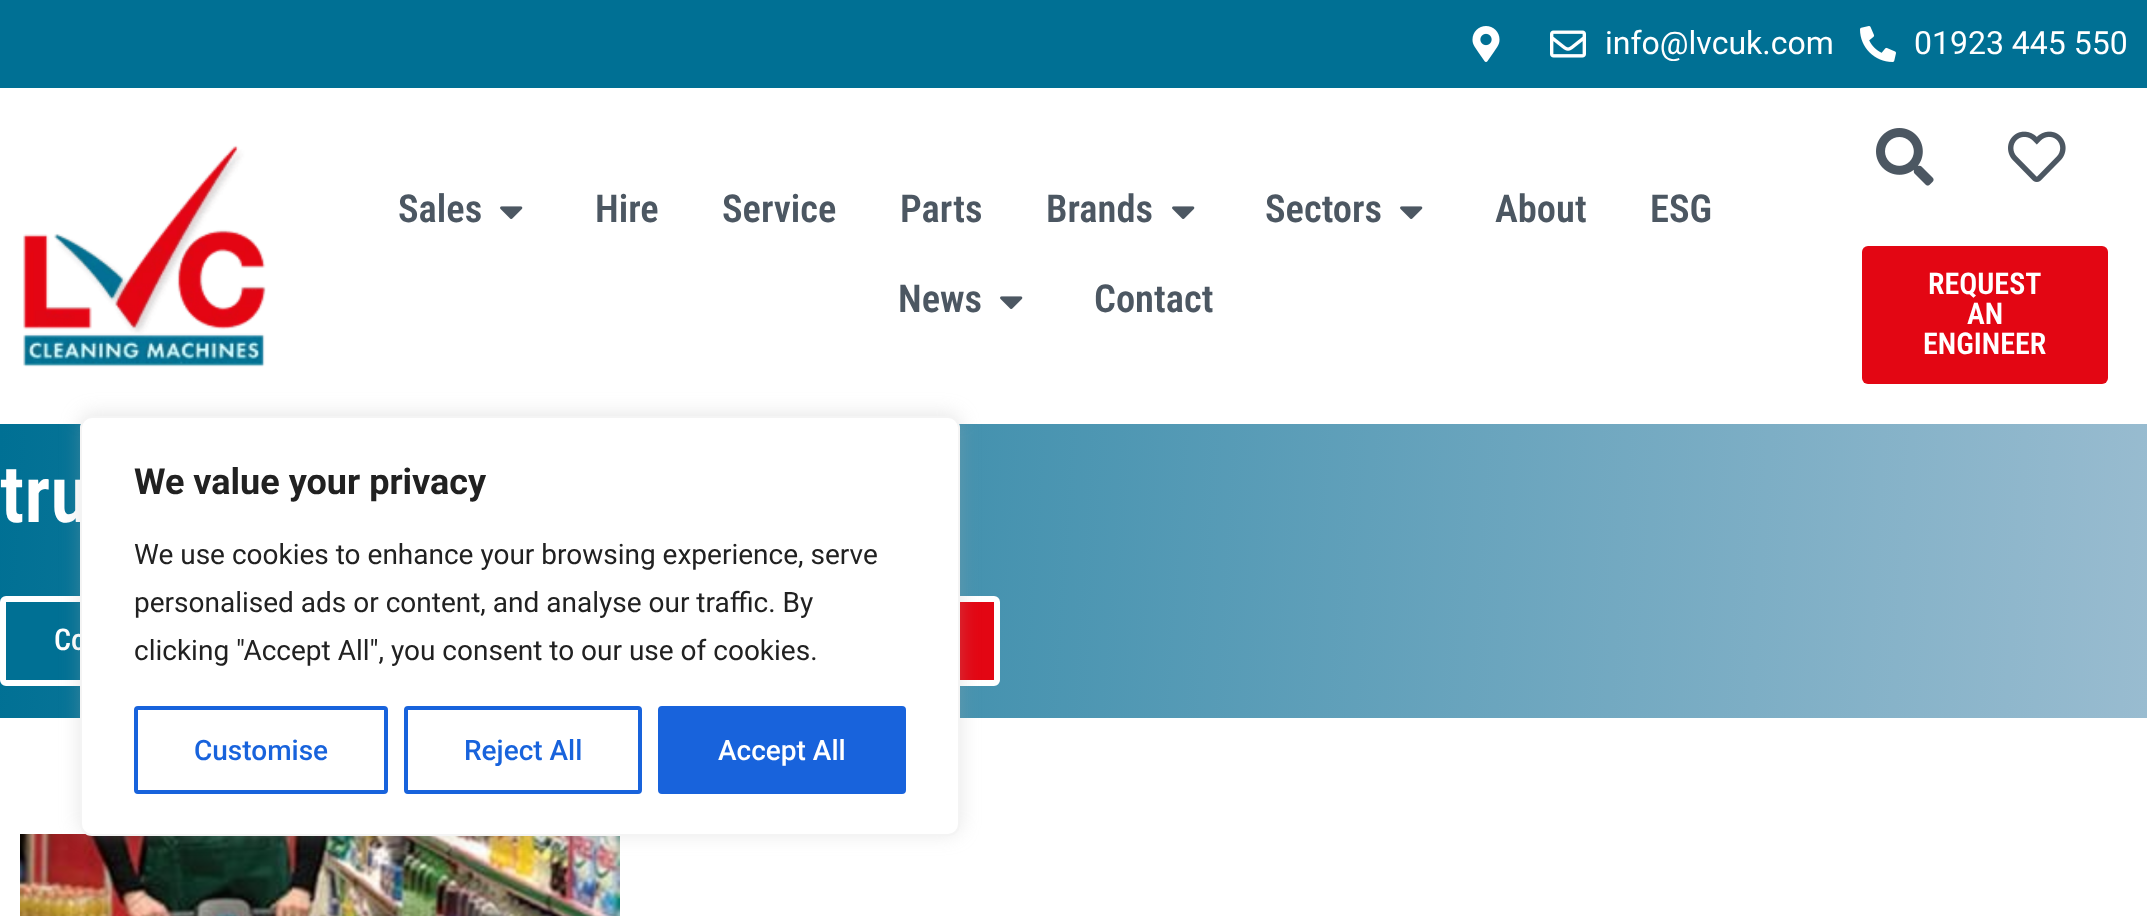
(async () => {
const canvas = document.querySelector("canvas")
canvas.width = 2147
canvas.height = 916
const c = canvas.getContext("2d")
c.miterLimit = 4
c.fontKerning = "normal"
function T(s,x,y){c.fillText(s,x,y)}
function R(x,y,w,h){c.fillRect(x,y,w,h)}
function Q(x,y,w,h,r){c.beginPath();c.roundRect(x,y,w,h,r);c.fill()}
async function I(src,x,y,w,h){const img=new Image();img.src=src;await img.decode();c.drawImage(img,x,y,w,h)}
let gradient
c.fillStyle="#fff"
R(0,0,2147,916)
c.fillStyle="#007094"
R(0,0,2147,88)
await I("1.png",1472,26,28,36)
await I("2.png",1550,30,36,28)
c.font="32px Roboto"
c.fillStyle="#fff"
T("info@lvcuk.com",1605,54)
await I("3.png",1860,26,36,36)
T("01923 445 550",1914,54)
await I("4.png",23,145,243,222)
c.font="600 38.5px Roboto Condensed"
c.fillStyle="#4c5762"
T("Sales",398,222)
await I("5.png",500,206,23,13)
T("Hire",595,222)
T("Service",722,222)
T("Parts",900,222)
T("Brands",1046,222)
await I("5.png",1172,206,23,13)
T("Sectors",1265,222)
await I("5.png",1400,206,23,13)
T("About",1495,222)
T("ESG",1650,222)
T("News",898,312)
await I("5.png",1000,296,23,13)
T("Contact",1094,312)
await I("6.png",1876,128,58,58)
await I("7.png",2008,131,58,51)
c.fillStyle="#e30613"
Q(1862,246,246,138,6)
c.font="600 30px Roboto Condensed"
c.fillStyle="#fff"
T("REQUEST",1928,294)
T("AN",1967,324)
T("ENGINEER",1923,354)
gradient = c.createLinearGradient(-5,496,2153,646)
gradient.addColorStop(0,"#007094")
gradient.addColorStop(1,"#99bcd0")
c.fillStyle = gradient
R(0,424,2147,294)
c.font="600 80px Roboto Condensed"
c.fillStyle="#fff"
T("tru",0,522)
c.fillStyle="#007094"
c.beginPath()
c.roundRect(3,599,268,84,3)
c.fill()
c.strokeStyle="#fff"
c.lineWidth=6
c.stroke()
c.font="500 30px Roboto Condensed"
c.fillStyle="#fff"
T("Co",54,650)
c.fillStyle="#e30613"
c.beginPath()
c.roundRect(653,599,344,84,3)
c.fill()
c.stroke()
await I("8.png",20,834,600,82)
c.fillStyle="#acabab4d"
c.filter="blur(10px)"
c.beginPath()
c.roundRect(80,414,880,420,12)
c.fill()
c.filter="none"
c.fillStyle="#fff"
c.beginPath()
c.roundRect(81,417,878,418,11)
c.fill()
c.strokeStyle="#f4f4f4"
c.lineWidth=2
c.stroke()
c.font="bold 36px Roboto"
c.fillStyle="#212121"
T("We value your privacy",134,494)
c.font="28px Roboto"
T("We use cookies to enhance your browsing experience, serve",134,564)
T("personalised ads or content, and analyse our traffic. By",134,612)
T("clicking \"Accept All\", you consent to our use of cookies.",134,660)
c.beginPath()
c.roundRect(136,708,250,84,2)
c.strokeStyle="#1863dc"
c.lineWidth=4
c.stroke()
c.font="500 28px Roboto"
c.fillStyle="#1863dc"
T("Customise",194,760)
c.beginPath()
c.roundRect(406,708,234,84,2)
c.stroke()
T("Reject All",464,760)
c.beginPath()
c.roundRect(660,708,244,84,2)
c.fill()
c.stroke()
c.fillStyle="#fff"
T("Accept All",718,760)
})()
